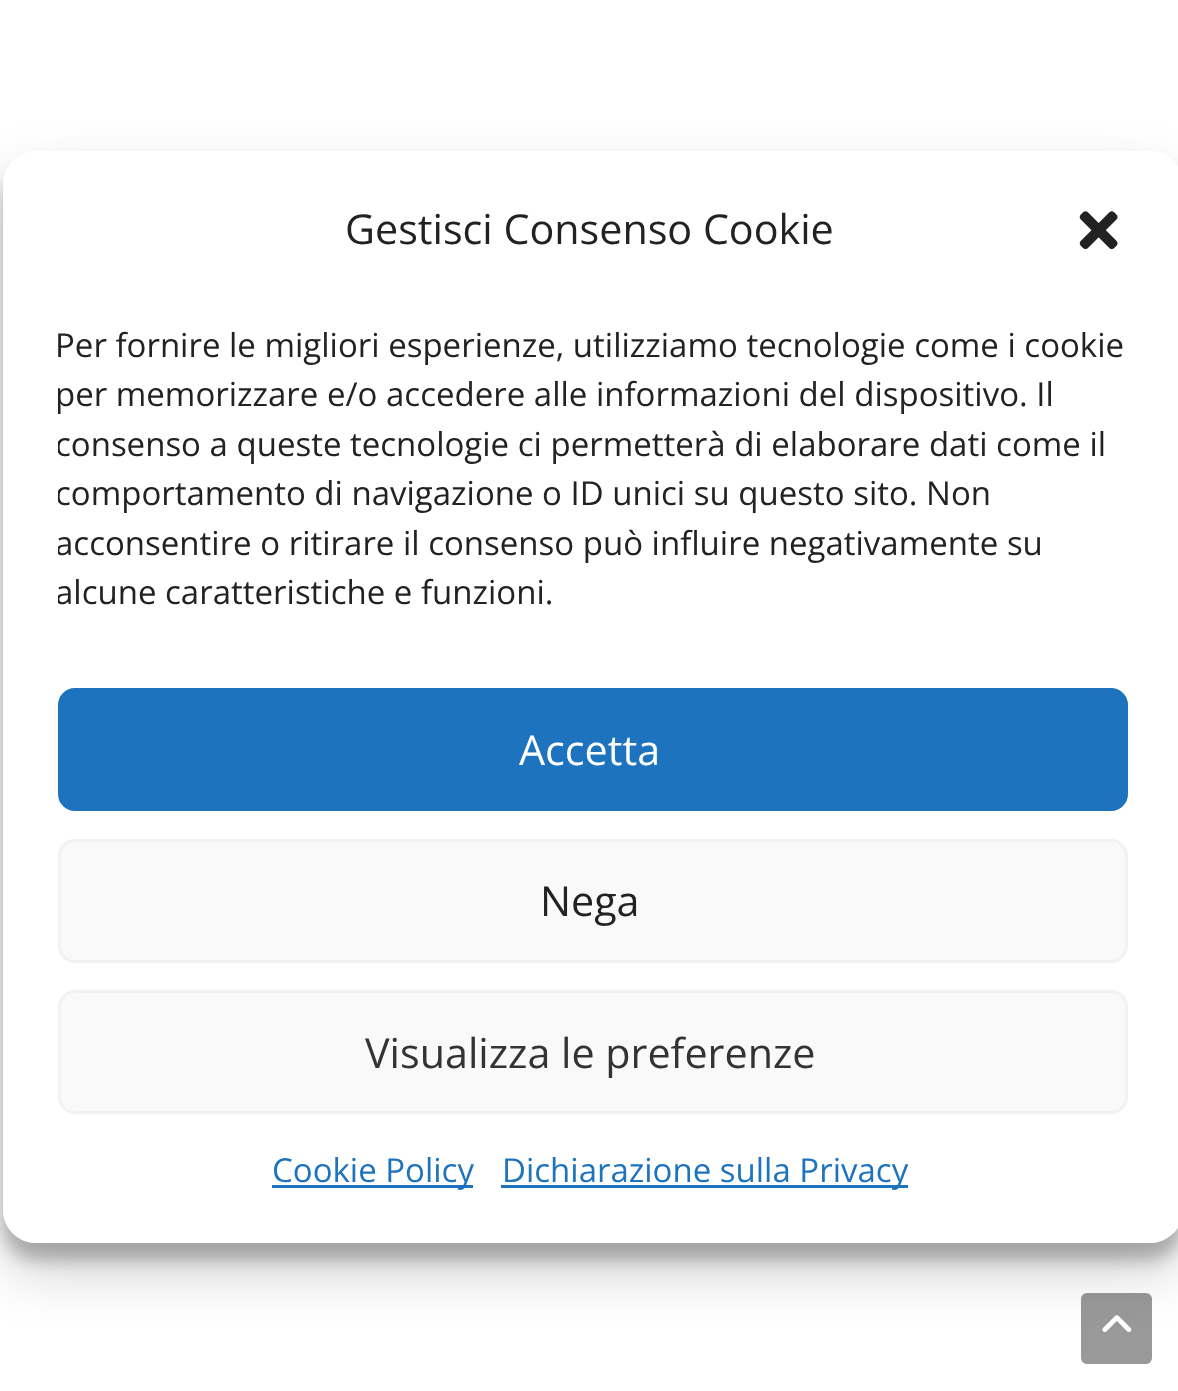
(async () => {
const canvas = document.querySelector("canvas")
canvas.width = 1178
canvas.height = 1391
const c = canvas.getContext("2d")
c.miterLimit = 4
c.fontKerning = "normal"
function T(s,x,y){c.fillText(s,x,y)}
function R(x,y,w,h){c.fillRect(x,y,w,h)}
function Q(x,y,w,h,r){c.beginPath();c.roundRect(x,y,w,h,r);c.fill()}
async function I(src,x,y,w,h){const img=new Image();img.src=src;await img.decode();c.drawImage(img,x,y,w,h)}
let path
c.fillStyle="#fff"
R(0,0,1178,1391)
c.save()
path = new Path2D("M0 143h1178v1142h-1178zm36 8h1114c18 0 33 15 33 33v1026c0 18-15 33-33 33h-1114c-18 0-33-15-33-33v-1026c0-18 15-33 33-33z")
c.clip(path,"evenodd")
c.fillStyle="#0000003b"
c.filter="blur(8px)"
c.beginPath()
c.roundRect(3,168,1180,1092,33)
c.fill()
c.filter="none"
c.restore()
c.fillStyle="#999"
Q(1081,1293,71,71,6)
await I("2.png",1102,1315,30,17)
c.save()
path = new Path2D("M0 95h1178v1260h-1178zm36 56h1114c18 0 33 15 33 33v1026c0 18-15 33-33 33h-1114c-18 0-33-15-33-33v-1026c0-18 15-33 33-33z")
c.clip(path,"evenodd")
c.fillStyle="#00000030"
c.filter="blur(27.5px)"
c.beginPath()
c.roundRect(3,179,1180,1092,33)
c.fill()
c.filter="none"
c.restore()
c.fillStyle="#fff"
Q(3,151,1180,1092,33)
c.font="41.25px Open Sans"
c.fillStyle="#222"
T("Gestisci Consenso Cookie",345,244)
await I("1.png",1079,211,39,39)
c.font="33px Open Sans"
T("Per fornire le migliori esperienze, utilizziamo tecnologie come i cookie",55,357)
c.save()
c.beginPath()
c.rect(58,322,1070,311)
c.clip()
T("per memorizzare e/o accedere alle informazioni del dispositivo. Il",55,406)
T("consenso a queste tecnologie ci permetterà di elaborare dati come il",55,456)
T("comportamento di navigazione o ID unici su questo sito. Non",55,505)
T("acconsentire o ritirare il consenso può influire negativamente su",55,555)
T("alcune caratteristiche e funzioni.",55,604)
c.restore()
c.fillStyle="#1e73be"
c.beginPath()
c.roundRect(59.5,689.5,1067,120,15.5)
c.fill()
c.strokeStyle="#1e73be"
c.lineWidth=3
c.stroke()
c.font="41.25px Open Sans"
c.fillStyle="#fff"
T("Accetta",519,765)
c.fillStyle="#f9f9f9"
c.beginPath()
c.roundRect(59.5,840.5,1067,121,15.5)
c.fill()
c.strokeStyle="#f2f2f2"
c.stroke()
c.fillStyle="#222"
T("Nega",540,916)
c.fillStyle="#f9f9f9"
c.beginPath()
c.roundRect(59.5,991.5,1067,121,15.5)
c.fill()
c.stroke()
c.fillStyle="#333"
T("Visualizza le preferenze",365,1068)
c.fillStyle="#1e73be"
R(272,1185,201,3)
c.font="33px Open Sans"
T("Cookie Policy",272,1182)
R(501,1185,407,3)
T("Dichiarazione sulla Privacy",502,1182)
})()
